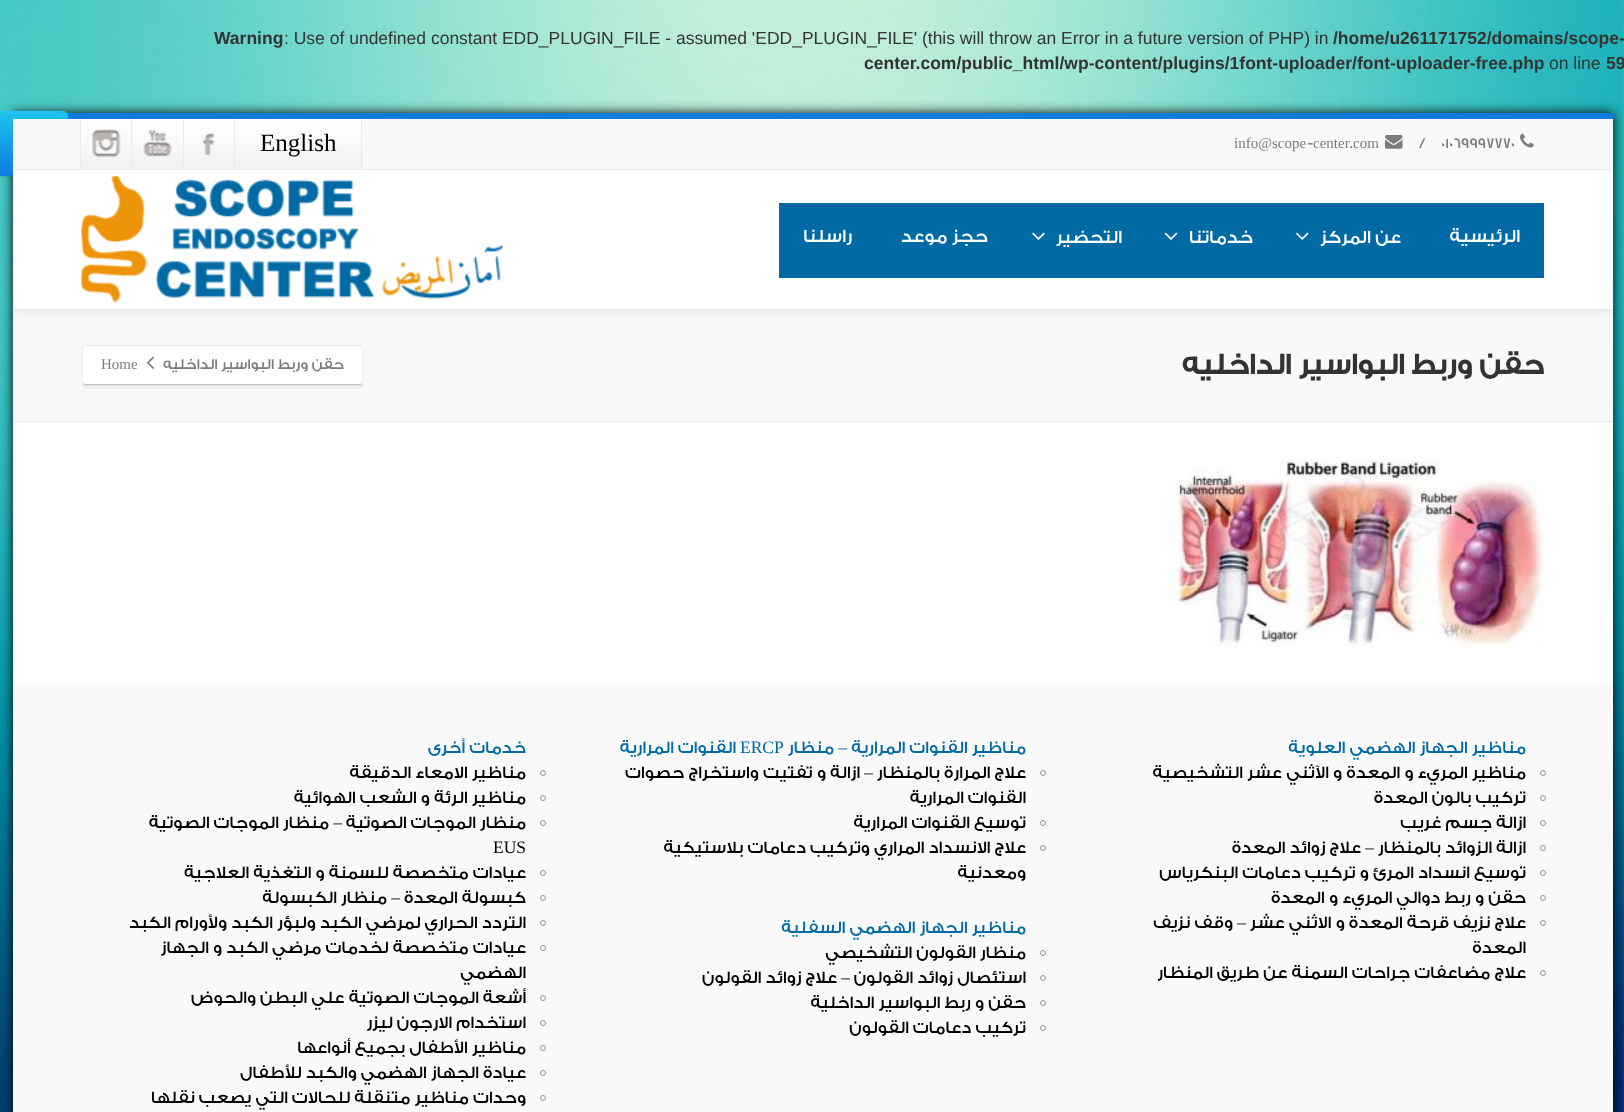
(async () => {
const canvas = document.querySelector("canvas")
canvas.width = 1624
canvas.height = 1112
const c = canvas.getContext("2d")
c.miterLimit = 4
c.fontKerning = "normal"
function T(s,x,y){c.fillText(s,x,y)}
function R(x,y,w,h){c.fillRect(x,y,w,h)}
function Q(x,y,w,h,r){c.beginPath();c.roundRect(x,y,w,h,r);c.fill()}
async function I(src,x,y,w,h){const img=new Image();img.src=src;await img.decode();c.drawImage(img,x,y,w,h)}
let gradient, path
c.fillStyle="#fff"
R(0,0,1624,1112)
await I("1.png",0,0,1624,1112)
c.font="bold 17.5px Liberation Sans"
c.fillStyle="#333"
T("/home/u261171752/domains/scope-",1333,44)
c.font="17.5px Liberation Sans"
T(": Use of undefined constant EDD_PLUGIN_FILE - assumed 'EDD_PLUGIN_FILE' (this will throw an Error in a future version of PHP) in",284,44)
c.font="bold 17.5px Liberation Sans"
T("Warning",214,44)
T("59",1606,69)
c.font="17.5px Liberation Sans"
T("on line",1549,69)
c.font="bold 17.5px Liberation Sans"
T("center.com/public_html/wp-content/plugins/1font-uploader/font-uploader-free.php",864,69)
c.fillStyle="#000"
c.filter="blur(6px)"
c.beginPath()
c.rect(13,113,1600,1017)
c.fill()
c.filter="none"
c.fillStyle="#fff"
R(13,423,1600,262)
c.fillStyle="#0e7bdd"
R(67,113,1546,6)
c.fillStyle="#f9f9f9"
R(13,309,1600,114)
c.fillStyle="#00000014"
path = new Path2D("M-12 173c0 3 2 5 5 5h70c3 0 5-2 5-5v-55l-1-2l1 46c0 16 0 14-17 14h-47c-3 0-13 3-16-3z")
c.fill(path)
gradient = c.createLinearGradient(27,111,28,176)
gradient.addColorStop(0,"#1fc4f0")
gradient.addColorStop(1,"#0e7add")
c.fillStyle = gradient
Q(-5,111,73,65,5)
c.save()
c.beginPath()
c.rect(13,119,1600,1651)
c.clip()
c.fillStyle="#0000001a"
c.filter="blur(6px)"
c.beginPath()
c.rect(13,173,1600,138)
c.fill()
c.filter="none"
c.restore()
c.fillStyle="#f9f9f9"
R(13,119,1600,50)
c.fillStyle="#ebebeb"
R(13,169,1600,1)
await I("2.png",1520,133,14,15)
c.font="500 15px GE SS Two"
c.fillStyle="#7c7c7c"
T("01069997770",1441,148)
T("/",1419,148)
await I("3.png",1385,135,18,14)
c.font="15px Liberation Serif"
T("com",1353,148)
T("center",1313,148)
c.font="500 15px GE SS Two"
T("-",1307,148)
c.font="15px Liberation Serif"
T("info@scope",1234,148)
c.font="500 15px GE SS Two"
T(".",1350,148)
gradient = c.createLinearGradient(298,119,298,169)
gradient.addColorStop(0,"#fff")
gradient.addColorStop(1,"#f1f1f1")
c.fillStyle = gradient
R(235,119,128,50)
c.fillStyle="#ebebeb"
R(361,119,1,50)
R(234,119,1,50)
c.font="25px Liberation Serif"
c.fillStyle="#000"
T("English",260,151)
gradient = c.createLinearGradient(209,119,209,169)
gradient.addColorStop(0,"#fff")
gradient.addColorStop(1,"#f1f1f1")
c.fillStyle = gradient
R(184,119,50,50)
await I("4.png",203,133,12,23)
gradient = c.createLinearGradient(158,119,158,169)
gradient.addColorStop(0,"#fff")
gradient.addColorStop(1,"#f1f1f1")
c.fillStyle = gradient
R(133,119,50,50)
c.fillStyle="#ebebeb"
R(183,119,1,50)
await I("5.png",143,129,29,29)
gradient = c.createLinearGradient(106,119,106,169)
gradient.addColorStop(0,"#fff")
gradient.addColorStop(1,"#f1f1f1")
c.fillStyle = gradient
R(81,119,52,50)
c.fillStyle="#ebebeb"
R(131,119,1,50)
R(80,119,1,50)
await I("6.png",92,129,29,29)
c.fillStyle="#fff"
R(13,170,1600,139)
c.fillStyle="#006aa5"
R(779,203,765,75)
c.direction="rtl"
c.font="500 18.75px GE SS Two"
c.fillStyle="#fff"
T("الرئيسية",1520,242)
T("عن المركز",1401,243)
await I("7.png",1296,232,13,8)
T("خدماتنا",1253,243)
await I("8.png",1164,232,14,8)
T("التحضير",1122,243)
await I("9.png",1032,232,13,8)
T("حجز موعد",988,242)
T("راسلنا",852,242)
await I("10.png",81,176,423,128)
c.fillStyle="#ebebeb"
R(13,421,1600,1)
c.font="bold 30px GE SS Two"
c.fillStyle="#333"
T("حقن وربط البواسير الداخليه",1544,374)
c.fillStyle="#e8e8e8"
path = new Path2D("M81 349v33c0 2 2 4 4 4h275c2 0 4-2 4-4v-33v32c0 2-2 4-4 4h-275c-2 0-4-2-4-4z")
c.fill(path)
c.fillStyle="#00000008"
path = new Path2D("M81 352v33c0 2 2 4 4 4h275c2 0 4-2 4-4v-33v29c0 2-2 4-4 4h-275c-2 0-4-2-4-4z")
c.fill(path)
c.fillStyle="#fff"
Q(81,345,283,40,4)
path = new Path2D("M362 383.5l-2 1h-275l-2-1")
c.strokeStyle="#c7c7c7"
c.lineWidth=1.2
c.stroke(path)
path = new Path2D("M83 383.5l-1-2.5v-32l1-2.5l2-1h275l2 1l1 2.5v32l-1 2.5")
c.strokeStyle="#ebebeb"
c.stroke(path)
c.font="500 15px GE SS Two"
c.fillStyle="#7c7c7c"
T("حقن وربط البواسير الداخليه",344,369)
await I("11.png",146,356,9,13)
c.direction="ltr"
c.font="15px Liberation Serif"
T("Home",101,369)
await I("12.png",1169,460,375,188)
c.fillStyle="#f9f9f9"
R(13,685,1600,427)
c.direction="rtl"
c.font="500 17.5px GE SS Two"
c.fillStyle="#006aa5"
T("مناظير الجهاز الهضمي العلوية",1526,753)
c.beginPath()
c.arc(1543,773,2.5,0,7)
c.strokeStyle="#959595"
c.lineWidth=1
c.stroke()
c.fillStyle="#000"
T("مناظير المريء و المعدة و الآثني عشر التشخيصية",1526,778)
c.beginPath()
c.arc(1543,798,2.5,0,7)
c.stroke()
T("تركيب بالون المعدة",1526,803)
c.beginPath()
c.arc(1543,823,2.5,0,7)
c.stroke()
T("ازالة جسم غريب",1526,828)
c.beginPath()
c.arc(1543,848,2.5,0,7)
c.stroke()
T("ازالة الزوائد بالمنظار",1526,853)
c.font="17.5px Liberation Serif"
T("–",1374,853)
c.font="500 17.5px GE SS Two"
T("علاج زوائد المعدة",1361,853)
c.beginPath()
c.arc(1543,873,2.5,0,7)
c.stroke()
T("توسيع انسداد المرئ و تركيب دعامات البنكرياس",1526,878)
c.beginPath()
c.arc(1543,898,2.5,0,7)
c.stroke()
T("حقن و ربط دوالي المريء و المعدة",1526,903)
c.beginPath()
c.arc(1543,923,2.5,0,7)
c.stroke()
T("علاج نزيف قرحة المعدة و الاثني عشر",1526,928)
c.font="17.5px Liberation Serif"
T("–",1246,928)
c.font="500 17.5px GE SS Two"
T("وقف نزيف",1233,928)
T("المعدة",1526,953)
c.beginPath()
c.arc(1543,973,2.5,0,7)
c.stroke()
T("علاج مضاعفات جراحات السمنة عن طريق المنظار",1526,978)
c.fillStyle="#006aa5"
T("مناظير القنوات المرارية",1026,753)
c.font="17.5px Liberation Serif"
T("–",847,753)
c.font="500 17.5px GE SS Two"
T("منظار",834,753)
c.direction="ltr"
c.font="17.5px Liberation Serif"
T("ERCP",740,753)
c.direction="rtl"
c.font="500 17.5px GE SS Two"
T("القنوات المرارية",736,753)
c.beginPath()
c.arc(1043,773,2.5,0,7)
c.stroke()
c.fillStyle="#000"
T("علاج المرارة بالمنظار",1026,778)
c.font="17.5px Liberation Serif"
T("–",873,778)
c.font="500 17.5px GE SS Two"
T("ازالة و تفتيت واستخراج حصوات",860,778)
T("القنوات المرارية",1026,803)
c.beginPath()
c.arc(1043,823,2.5,0,7)
c.stroke()
T("توسيع القنوات المرارية",1026,828)
c.beginPath()
c.arc(1043,848,2.5,0,7)
c.stroke()
T("علاج الانسداد المراري وتركيب دعامات بلاستيكية",1026,853)
T("ومعدنية",1026,878)
c.fillStyle="#006aa5"
T("مناظير الجهاز الهضمي السفلية",1026,933)
c.beginPath()
c.arc(1043,953,2.5,0,7)
c.stroke()
c.fillStyle="#000"
T("منظار القولون التشخيصي",1026,958)
c.beginPath()
c.arc(1043,978,2.5,0,7)
c.stroke()
T("استئصال زوائد القولون",1026,983)
c.font="17.5px Liberation Serif"
T("–",850,983)
c.font="500 17.5px GE SS Two"
T("علاج زوائد القولون",837,983)
c.beginPath()
c.arc(1043,1003,2.5,0,7)
c.stroke()
T("حقن و ربط البواسير الداخلية",1026,1008)
c.beginPath()
c.arc(1043,1028,2.5,0,7)
c.stroke()
T("تركيب دعامات القولون",1026,1033)
c.fillStyle="#006aa5"
T("خدمات أخرى",526,753)
c.beginPath()
c.arc(543,773,2.5,0,7)
c.stroke()
c.fillStyle="#000"
T("مناظير الامعاء الدقيقة",526,778)
c.beginPath()
c.arc(543,798,2.5,0,7)
c.stroke()
T("مناظير الرئة و الشعب الهوائية",526,803)
c.beginPath()
c.arc(543,823,2.5,0,7)
c.stroke()
T("منظار الموجات الصوتية",526,828)
c.font="17.5px Liberation Serif"
T("–",342,828)
c.font="500 17.5px GE SS Two"
T("منظار الموجات الصوتية",329,828)
c.direction="ltr"
c.font="17.5px Liberation Serif"
T("EUS",493,853)
c.beginPath()
c.arc(543,873,2.5,0,7)
c.stroke()
c.direction="rtl"
c.font="500 17.5px GE SS Two"
T("عيادات متخصصة للسمنة و التغذية العلاجية",526,878)
c.beginPath()
c.arc(543,898,2.5,0,7)
c.stroke()
T("كبسولة المعدة",526,903)
c.font="17.5px Liberation Serif"
T("–",400,903)
c.font="500 17.5px GE SS Two"
T("منظار الكبسولة",387,903)
c.beginPath()
c.arc(543,923,2.5,0,7)
c.stroke()
T("التردد الحراري لمرضي الكبد ولبؤر الكبد ولأورام الكبد",526,928)
c.beginPath()
c.arc(543,948,2.5,0,7)
c.stroke()
T("عيادات متخصصة لخدمات مرضي الكبد و الجهاز",526,953)
T("الهضمي",526,978)
c.beginPath()
c.arc(543,998,2.5,0,7)
c.stroke()
T("أشعة الموجات الصوتية علي البطن والحوض",526,1003)
c.beginPath()
c.arc(543,1023,2.5,0,7)
c.stroke()
T("استخدام الارجون ليزر",526,1028)
c.beginPath()
c.arc(543,1048,2.5,0,7)
c.stroke()
T("مناظير الأطفال بجميع أنواعها",526,1053)
c.beginPath()
c.arc(543,1073,2.5,0,7)
c.stroke()
T("عيادة الجهاز الهضمي والكبد للأطفال",526,1078)
c.beginPath()
c.arc(543,1098,2.5,0,7)
c.stroke()
T("وحدات مناظير متنقلة للحالات التي يصعب نقلها",526,1103)
})()
